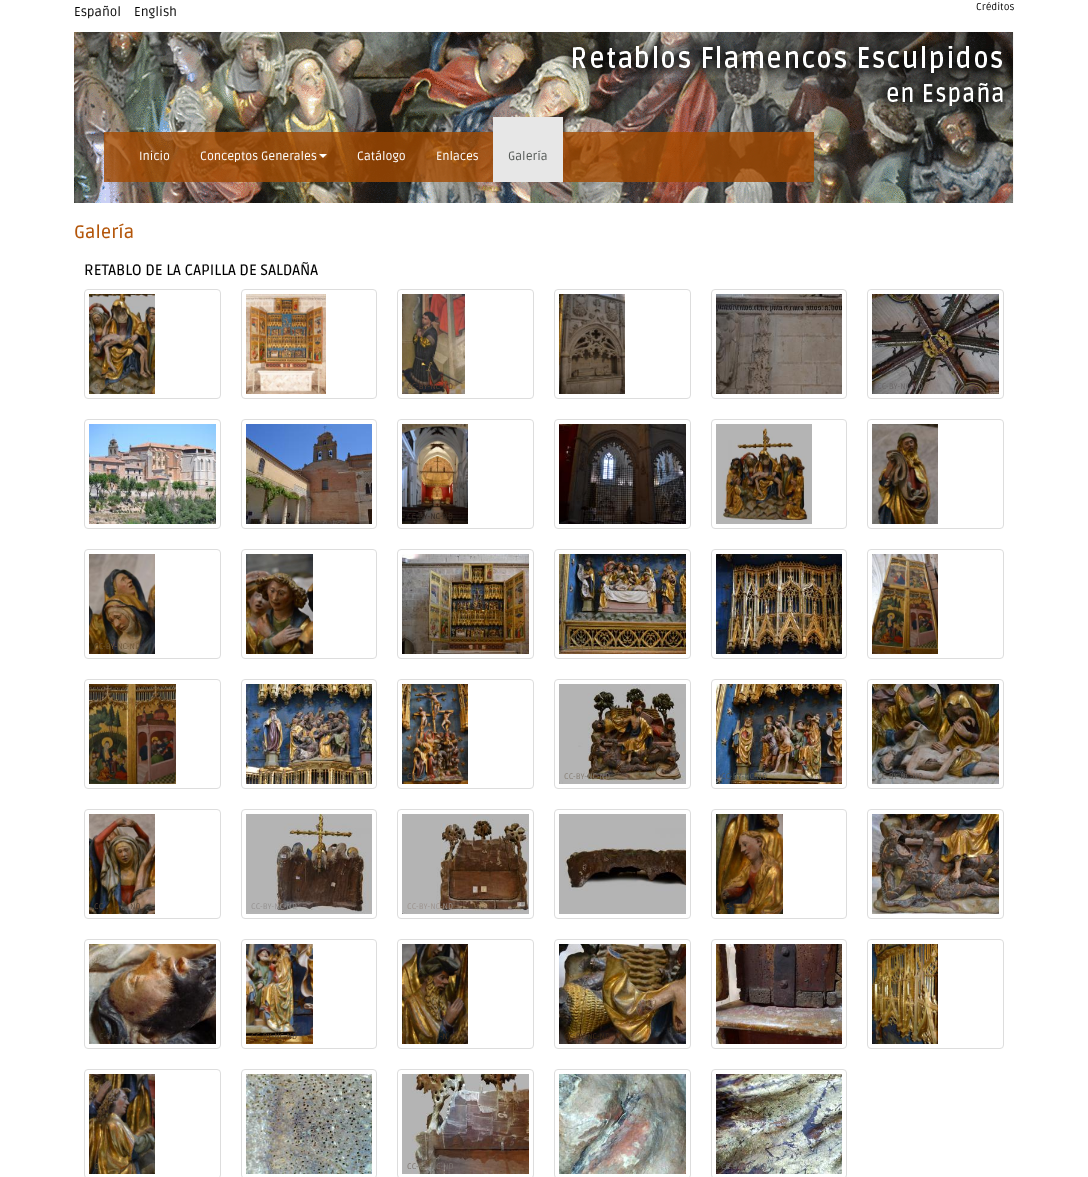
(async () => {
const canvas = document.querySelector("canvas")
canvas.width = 1088
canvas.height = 1177
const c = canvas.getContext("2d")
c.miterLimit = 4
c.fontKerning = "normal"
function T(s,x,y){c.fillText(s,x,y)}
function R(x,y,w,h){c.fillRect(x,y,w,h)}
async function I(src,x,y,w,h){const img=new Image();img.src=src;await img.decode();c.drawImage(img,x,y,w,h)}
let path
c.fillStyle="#fff"
R(0,0,1088,1177)
c.font="13px Ruda"
c.fillStyle="#000"
T("Español",74,16)
T("English",134,16)
c.font="10px Ruda"
T("Créditos",976,10)
c.fillStyle="#f8f8f8"
R(1013,32,1,171)
await I("1.png",74,32,939,171)
c.fillStyle="#a34a01cf"
R(104,132,710,50)
c.font="12px Ruda"
c.fillStyle="#fff"
T("Inicio",139,160)
T("Conceptos Generales",200,160)
path = new Path2D("M319 154h8l-4 4z")
c.fill(path)
T("Catálogo",357,160)
T("Enlaces",436,160)
c.fillStyle="#e7e7e7"
R(493,117,70,65)
c.fillStyle="#535855"
T("Galería",508,160)
c.font="500 18px Ruda"
c.fillStyle="#b4560a"
T("Galería",74,238)
c.font="500 15px Ruda"
c.fillStyle="#000"
T("RETABLO DE LA CAPILLA DE SALDAÑA",84,275)
c.beginPath()
c.roundRect(84.5,289.5,136,109,3.5)
c.strokeStyle="#ddd"
c.stroke()
await I("2.png",89,294,66,100)
c.font="8px Ruda"
c.fillStyle="#625742"
T("CC-BY-NC-ND",94,389)
c.beginPath()
c.roundRect(241.5,289.5,135,109,3.5)
c.stroke()
await I("3.png",246,294,80,100)
c.beginPath()
c.roundRect(397.5,289.5,136,109,3.5)
c.stroke()
await I("4.png",402,294,63,100)
c.fillStyle="#594033"
T("CC-BY-NC-ND",407,389)
c.beginPath()
c.roundRect(554.5,289.5,136,109,3.5)
c.stroke()
await I("5.png",559,294,66,100)
c.beginPath()
c.roundRect(711.5,289.5,135,109,3.5)
c.stroke()
await I("6.png",716,294,126,100)
c.beginPath()
c.roundRect(867.5,289.5,136,109,3.5)
c.stroke()
await I("7.png",872,294,127,100)
c.fillStyle="#6c6868"
T("CC-BY-NC-ND",877,389)
c.beginPath()
c.roundRect(84.5,419.5,136,109,3.5)
c.stroke()
await I("8.png",89,424,127,100)
c.beginPath()
c.roundRect(241.5,419.5,135,109,3.5)
c.stroke()
await I("9.png",246,424,126,100)
c.fillStyle="#5b534d"
T("-N",284,519)
c.beginPath()
c.roundRect(397.5,419.5,136,109,3.5)
c.stroke()
await I("10.png",402,424,66,100)
c.fillStyle="#332923"
T("CC-BY-NC-ND",407,519)
c.beginPath()
c.roundRect(554.5,419.5,136,109,3.5)
c.stroke()
await I("11.png",559,424,127,100)
c.beginPath()
c.roundRect(711.5,419.5,135,109,3.5)
c.stroke()
await I("12.png",716,424,96,100)
c.fillStyle="#6e614e"
T("-",754,519)
c.beginPath()
c.roundRect(867.5,419.5,136,109,3.5)
c.stroke()
await I("13.png",872,424,66,100)
c.fillStyle="#433117"
T("-",886,519)
T("-",910,519)
c.beginPath()
c.roundRect(84.5,549.5,136,109,3.5)
c.stroke()
await I("14.png",89,554,66,100)
c.fillStyle="#6f5839"
T("CC-BY-NC-ND",94,649)
c.beginPath()
c.roundRect(241.5,549.5,135,109,3.5)
c.stroke()
await I("15.png",246,554,67,100)
c.fillStyle="#4c3a1a"
T("-",260,649)
c.beginPath()
c.roundRect(397.5,549.5,136,109,3.5)
c.stroke()
await I("16.png",402,554,127,100)
c.beginPath()
c.roundRect(554.5,549.5,136,109,3.5)
c.stroke()
await I("17.png",559,554,127,100)
c.fillStyle="#6f5839"
T("CC-BY-NC-ND",564,649)
c.beginPath()
c.roundRect(711.5,549.5,135,109,3.5)
c.stroke()
await I("18.png",716,554,126,100)
c.fillStyle="#3c3329"
T("-",730,649)
c.beginPath()
c.roundRect(867.5,549.5,136,109,3.5)
c.stroke()
await I("19.png",872,554,66,100)
c.beginPath()
c.roundRect(84.5,679.5,136,109,3.5)
c.stroke()
await I("20.png",89,684,87,100)
c.fillStyle="#532c11"
T("-",127,779)
c.beginPath()
c.roundRect(241.5,679.5,135,109,3.5)
c.stroke()
await I("21.png",246,684,126,100)
c.fillStyle="#69593e"
T("CC-BY-NC-ND",251,779)
c.beginPath()
c.roundRect(397.5,679.5,136,109,3.5)
c.stroke()
await I("22.png",402,684,66,100)
c.fillStyle="#685041"
T("CC-",407,779)
T("-",428,779)
T("-",440,779)
c.beginPath()
c.roundRect(554.5,679.5,136,109,3.5)
c.stroke()
await I("23.png",559,684,127,100)
c.fillStyle="#867e74"
T("CC-BY-NC-ND",564,779)
c.beginPath()
c.roundRect(711.5,679.5,135,109,3.5)
c.stroke()
await I("24.png",716,684,126,100)
c.fillStyle="#535855"
T("CC-BY-NC-ND",721,779)
c.beginPath()
c.roundRect(867.5,679.5,136,109,3.5)
c.stroke()
await I("25.png",872,684,127,100)
c.fillStyle="#635e5b"
T("CC-BY-NC-ND",877,779)
c.beginPath()
c.roundRect(84.5,809.5,136,109,3.5)
c.stroke()
await I("26.png",89,814,66,100)
c.fillStyle="#554738"
T("CC",94,909)
T("-",115,909)
T("ND",130,909)
c.beginPath()
c.roundRect(241.5,809.5,135,109,3.5)
c.stroke()
await I("27.png",246,814,126,100)
c.fillStyle="#959291"
T("CC-BY-NC-ND",251,909)
c.beginPath()
c.roundRect(397.5,809.5,136,109,3.5)
c.stroke()
await I("28.png",402,814,127,100)
c.fillStyle="#9c938e"
T("CC-BY-NC-ND",407,909)
c.beginPath()
c.roundRect(554.5,809.5,136,109,3.5)
c.stroke()
await I("29.png",559,814,127,100)
c.beginPath()
c.roundRect(711.5,809.5,135,109,3.5)
c.stroke()
await I("30.png",716,814,67,100)
c.fillStyle="#5a3e18"
T("C-",725,909)
T("C",749,909)
c.beginPath()
c.roundRect(867.5,809.5,136,109,3.5)
c.stroke()
await I("31.png",872,814,127,100)
c.fillStyle="#716456"
T("-",898,909)
c.beginPath()
c.roundRect(84.5,939.5,136,109,3.5)
c.stroke()
await I("32.png",89,944,127,100)
c.fillStyle="#463d36"
T("C-BY-",99,1039)
T("-",127,1039)
c.beginPath()
c.roundRect(241.5,939.5,135,109,3.5)
c.stroke()
await I("33.png",246,944,67,100)
c.fillStyle="#584021"
T("CC-BY-NC-ND",251,1039)
c.beginPath()
c.roundRect(397.5,939.5,136,109,3.5)
c.stroke()
await I("34.png",402,944,66,100)
c.fillStyle="#433117"
T("-",428,1039)
T("-N",440,1039)
c.beginPath()
c.roundRect(554.5,939.5,136,109,3.5)
c.stroke()
await I("35.png",559,944,127,100)
c.fillStyle="#3e2b19"
T("CC-BY-NC-ND",564,1039)
c.beginPath()
c.roundRect(711.5,939.5,135,109,3.5)
c.stroke()
await I("36.png",716,944,126,100)
c.fillStyle="#2c0f0a"
T("C",721,1039)
c.beginPath()
c.roundRect(867.5,939.5,136,109,3.5)
c.stroke()
await I("37.png",872,944,66,100)
c.fillStyle="#483d28"
T("-",898,1039)
c.beginPath()
c.roundRect(84.5,1069.5,136,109,3.5)
c.stroke()
await I("38.png",89,1074,66,100)
c.fillStyle="#634f2f"
T("C",94,1169)
T("-",115,1169)
c.beginPath()
c.roundRect(241.5,1069.5,135,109,3.5)
c.stroke()
await I("39.png",246,1074,126,100)
c.fillStyle="#a7afae"
T("-BY",260,1169)
c.beginPath()
c.roundRect(397.5,1069.5,136,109,3.5)
c.stroke()
await I("40.png",402,1074,127,100)
c.fillStyle="#7c7570"
T("CC-",407,1169)
T("-NC-ND",428,1169)
c.beginPath()
c.roundRect(554.5,1069.5,136,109,3.5)
c.stroke()
await I("41.png",559,1074,127,100)
c.fillStyle="#959291"
T("-",573,1169)
c.beginPath()
c.roundRect(711.5,1069.5,135,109,3.5)
c.stroke()
await I("42.png",716,1074,126,100)
c.fillStyle="#716e6d"
T("CC-BY-NC-ND",721,1169)
})()
